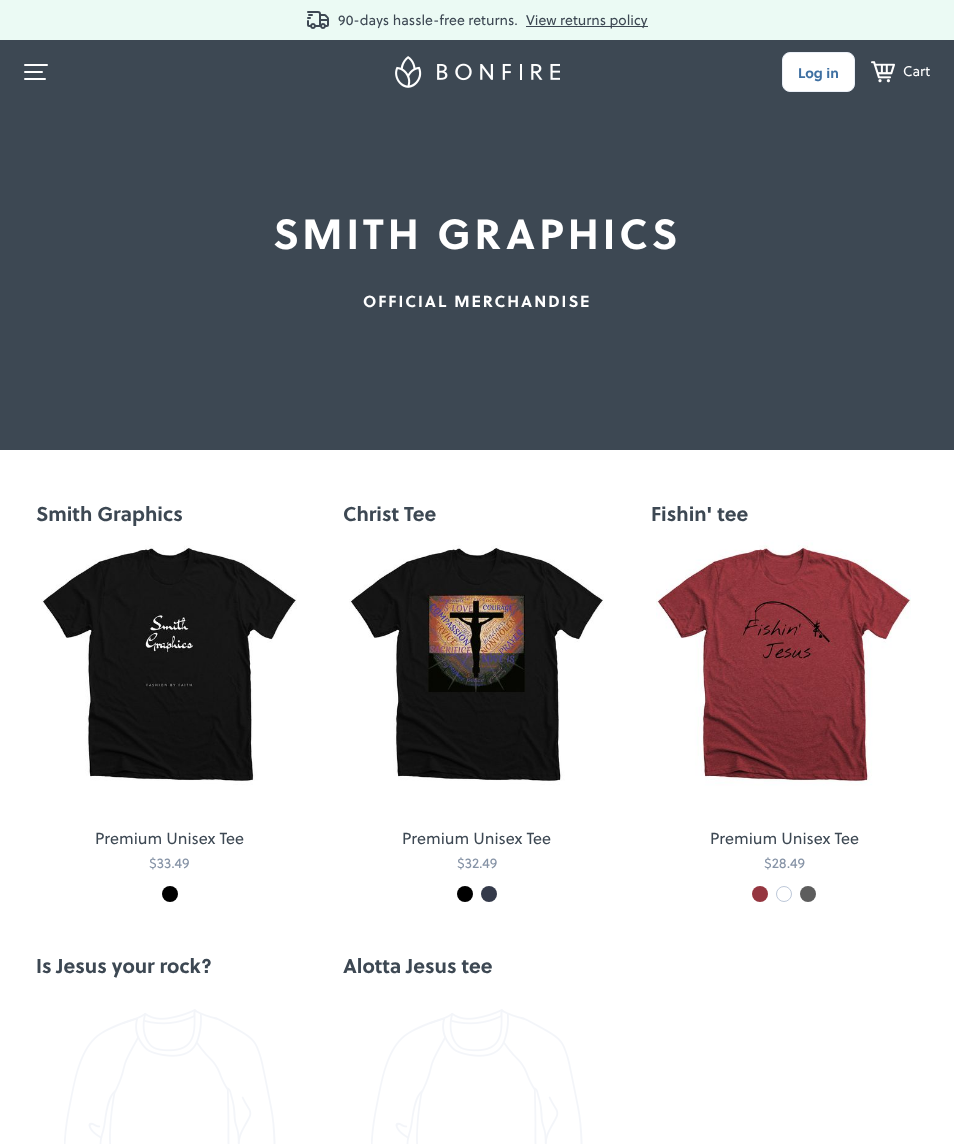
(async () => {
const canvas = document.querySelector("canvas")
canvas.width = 954
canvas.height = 1144
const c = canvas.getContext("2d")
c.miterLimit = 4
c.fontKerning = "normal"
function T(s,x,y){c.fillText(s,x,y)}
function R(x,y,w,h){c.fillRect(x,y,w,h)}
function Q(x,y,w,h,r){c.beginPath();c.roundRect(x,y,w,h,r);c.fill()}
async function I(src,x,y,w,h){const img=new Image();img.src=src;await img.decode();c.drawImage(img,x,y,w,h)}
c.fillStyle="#fff"
R(0,0,954,1144)
c.fillStyle="#ebfaf4"
R(0,0,954,40)
await I("1.png",307,11,22,18)
c.font="14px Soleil"
c.fillStyle="#3d4853"
T("90-days hassle-free returns.",338,25)
R(526,26,122,1)
T("View returns policy",526,25)
R(0,40,954,410)
c.fillStyle="#fff"
Q(24,64,24,2,1)
Q(24,71,19,2,1)
Q(24,78,22,2,1)
await I("2.png",395,56,165,32)
c.beginPath()
c.roundRect(782.5,52.5,72,39,7.5)
c.fill()
c.strokeStyle="#eaeff7"
c.stroke()
c.font="bold 14px Soleil"
c.fillStyle="#3f70a2"
T("Log in",798,78)
await I("3.png",871,61,24,22)
c.font="14px Soleil"
c.fillStyle="#fff"
T("Cart",903,76)
c.letterSpacing="4px"
c.font="bold 42px Soleil"
T("SMITH GRAPHICS",273,249)
c.letterSpacing="2px"
c.font="bold 16px Soleil"
T("OFFICIAL MERCHANDISE",363,307)
c.letterSpacing="0px"
c.font="bold 20px Soleil"
c.fillStyle="#3d4853"
T("Smith Graphics",36,521)
await I("4.png",41,545,256,242)
c.font="16px Soleil"
T("Premium Unisex Tee",95,844)
c.font="14px Soleil"
c.fillStyle="#8693a6"
T("$33.49",149,868)
c.fillStyle="#000"
c.beginPath()
c.arc(170,894,8,0,7)
c.fill()
c.font="bold 20px Soleil"
c.fillStyle="#3d4853"
T("Christ Tee",343,521)
await I("5.png",349,545,255,242)
c.font="16px Soleil"
T("Premium Unisex Tee",402,844)
c.font="14px Soleil"
c.fillStyle="#8693a6"
T("$32.49",457,868)
c.fillStyle="#000"
c.beginPath()
c.arc(465,894,8,0,7)
c.fill()
c.fillStyle="#343a4a"
c.beginPath()
c.arc(489,894,8,0,7)
c.fill()
c.font="bold 20px Soleil"
c.fillStyle="#3d4853"
T("Fishin' tee",651,521)
await I("6.png",656,540,255,247)
c.font="16px Soleil"
T("Premium Unisex Tee",710,844)
c.font="14px Soleil"
c.fillStyle="#8693a6"
T("$28.49",764,868)
c.fillStyle="#953640"
c.beginPath()
c.arc(760,894,8,0,7)
c.fill()
c.beginPath()
c.arc(784,894,7.5,0,7)
c.strokeStyle="#bdc8d9"
c.stroke()
c.fillStyle="#5d5d5d"
c.beginPath()
c.arc(808,894,8,0,7)
c.fill()
c.font="bold 20px Soleil"
c.fillStyle="#3d4853"
T("Is Jesus your rock?",36,973)
await I("7.png",64,1009,212,135)
T("Alotta Jesus tee",343,973)
await I("7.png",371,1009,212,135)
})()
